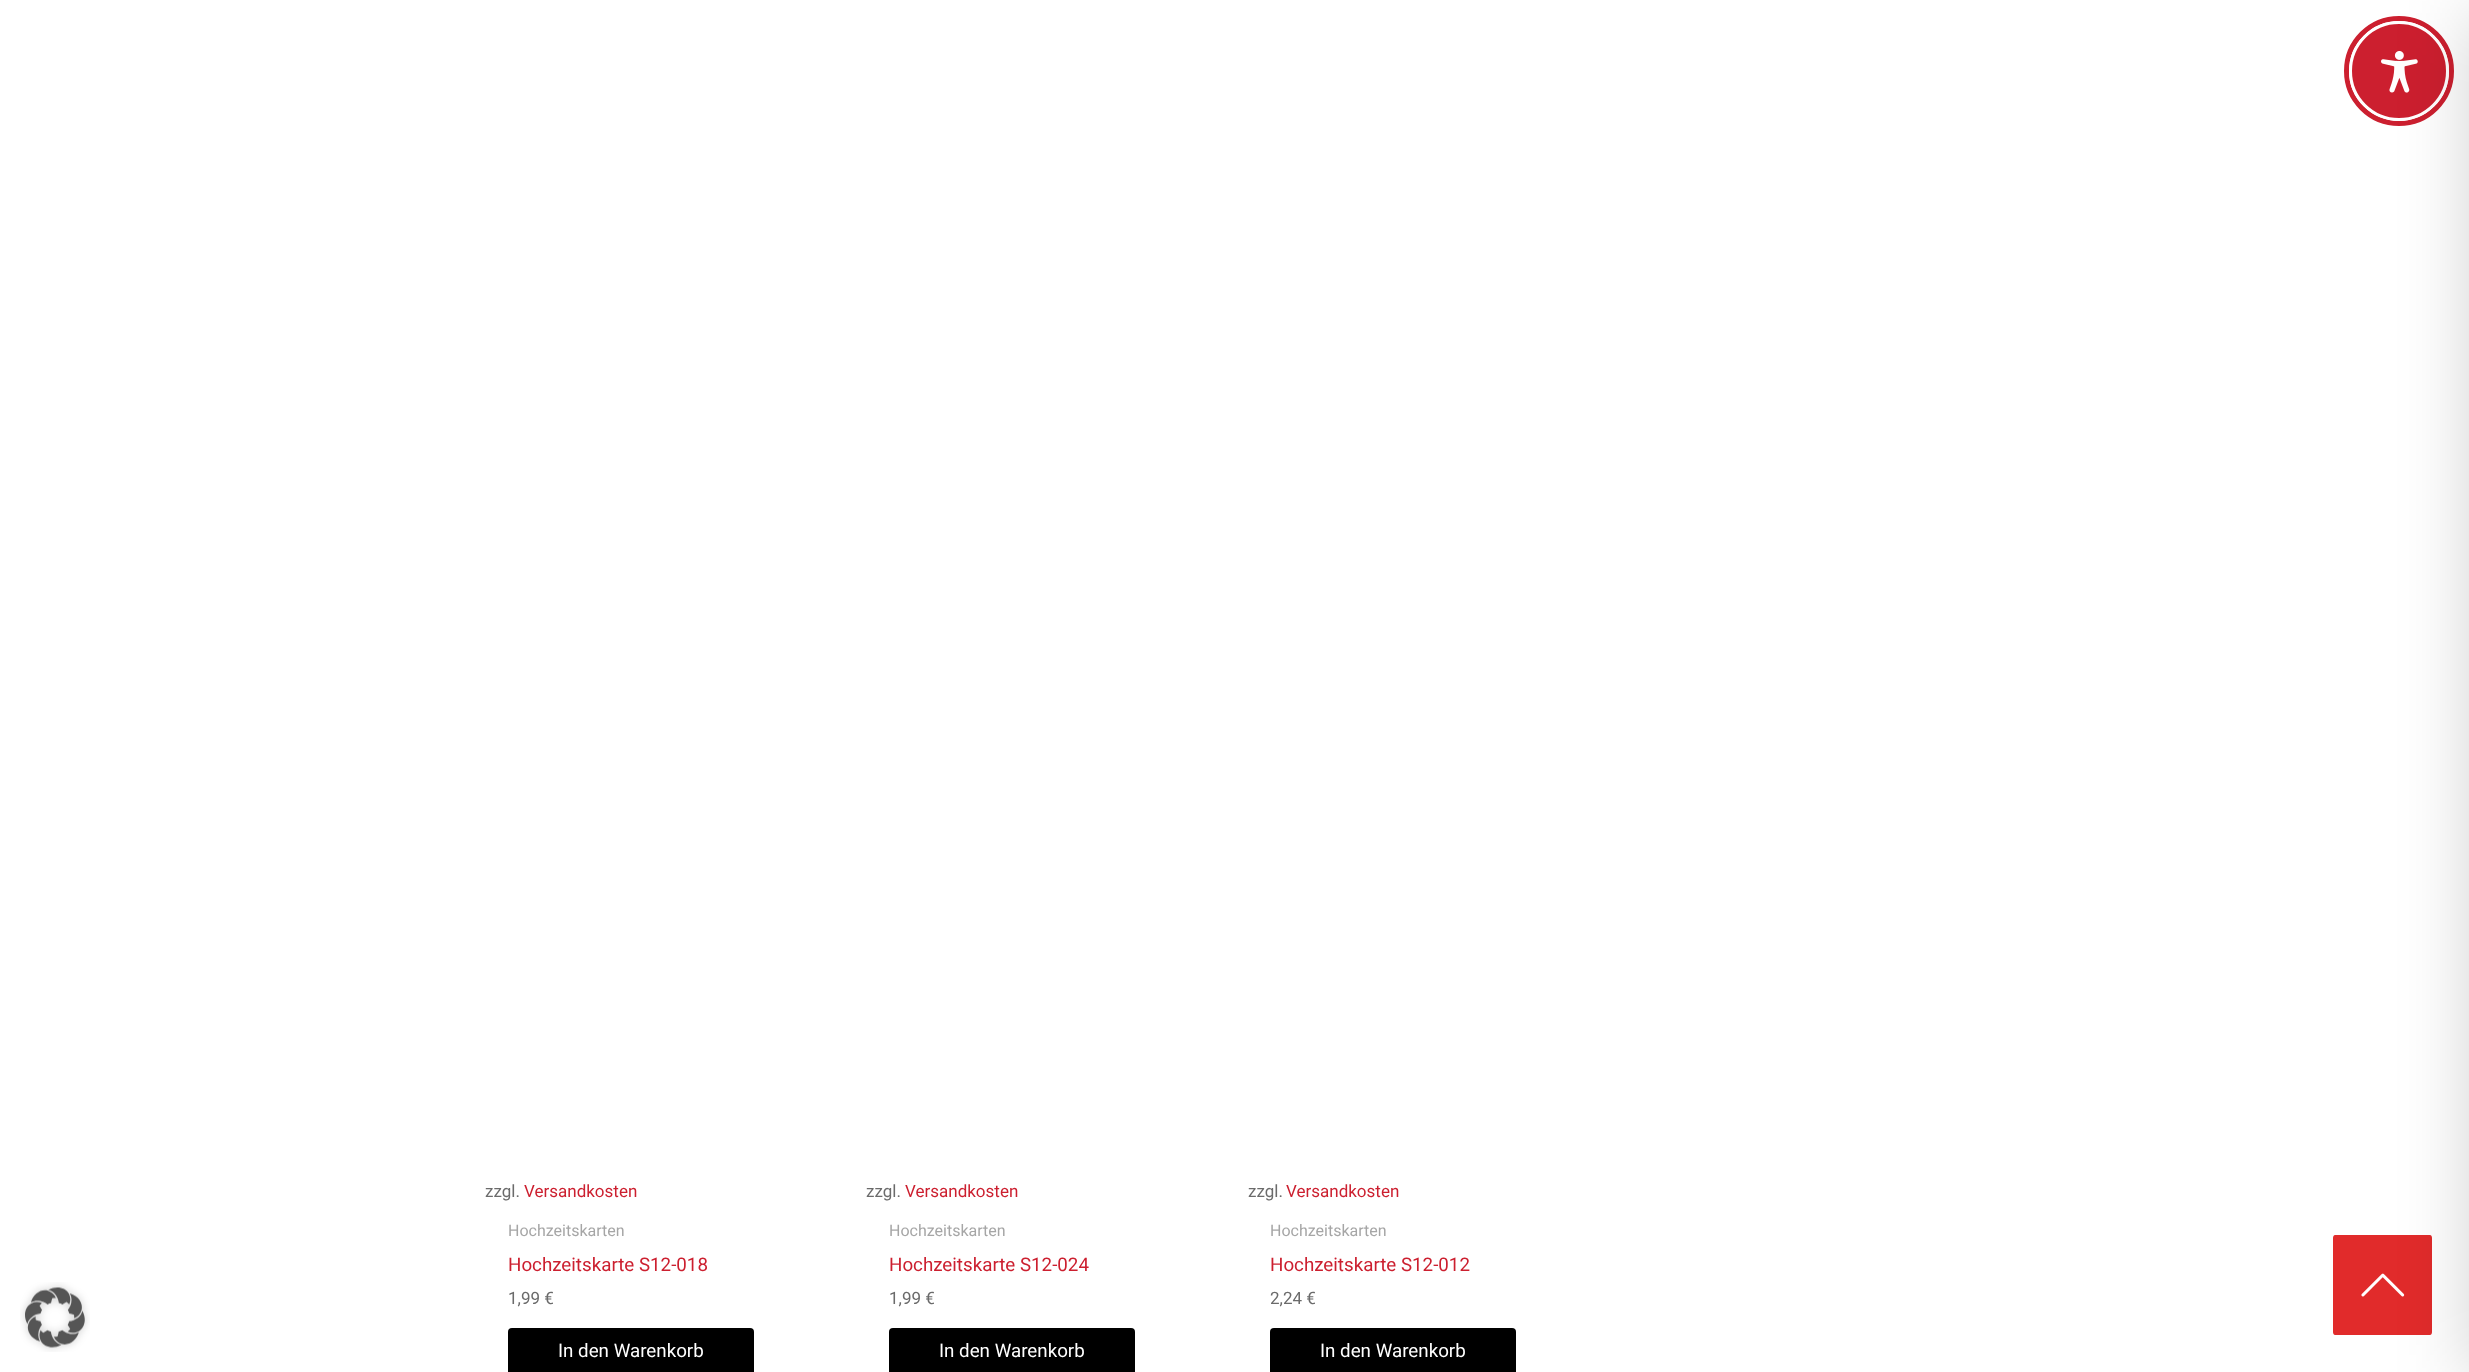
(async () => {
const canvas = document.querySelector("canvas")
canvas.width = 2469
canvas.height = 1372
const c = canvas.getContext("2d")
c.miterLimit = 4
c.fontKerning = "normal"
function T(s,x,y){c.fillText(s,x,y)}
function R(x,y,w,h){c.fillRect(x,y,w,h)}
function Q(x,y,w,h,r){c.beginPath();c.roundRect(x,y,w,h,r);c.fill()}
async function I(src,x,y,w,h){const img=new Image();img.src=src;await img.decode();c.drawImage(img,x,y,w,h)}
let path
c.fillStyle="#fff"
R(0,0,2469,1372)
c.beginPath()
c.arc(2399,71,52.5,0,7)
c.strokeStyle="#cc1f2f"
c.lineWidth=5
c.stroke()
c.fillStyle="#cc1f2f"
c.beginPath()
c.arc(2399,71,48.5,0,7)
c.fill()
c.strokeStyle="#fff"
c.lineWidth=3
c.stroke()
await I("1.png",2381,51,37,42)
c.fillStyle="#e12b2b"
path = new Path2D("M2430 1335h-95c-1 0-2-1-2-3v-94c0-2 1-3 2-3h95c1 0 2 1 2 3v94c0 2-1 3-2 3z")
c.fill(path)
await I("3.png",2361,1273,44,24)
c.fillStyle="#00000033"
c.filter="blur(37.5px)"
c.beginPath()
c.rect(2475,13,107,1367)
c.fill()
c.filter="none"
await I("2.png",20,1282,70,70)
c.font="17px Roboto"
c.fillStyle="#6b6b6b"
T("zzgl.",485,1197)
c.fillStyle="#cc1f2f"
T("Versandkosten",524,1197)
c.font="16px Roboto"
c.fillStyle="#a6a6a6"
T("Hochzeitskarten",508,1236)
c.font="18.75px Roboto"
c.fillStyle="#cc1f2f"
T("Hochzeitskarte S12-018",508,1271)
c.font="17px Roboto"
c.fillStyle="#6b6b6b"
T("1,99 €",508,1304)
c.fillStyle="#000"
Q(508,1328,246,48,4)
c.font="18.75px Roboto"
c.fillStyle="#fff"
T("In den Warenkorb",558,1357)
c.font="17px Roboto"
c.fillStyle="#6b6b6b"
T("zzgl.",866,1197)
c.fillStyle="#cc1f2f"
T("Versandkosten",905,1197)
c.font="16px Roboto"
c.fillStyle="#a6a6a6"
T("Hochzeitskarten",889,1236)
c.font="18.75px Roboto"
c.fillStyle="#cc1f2f"
T("Hochzeitskarte S12-024",889,1271)
c.font="17px Roboto"
c.fillStyle="#6b6b6b"
T("1,99 €",889,1304)
c.fillStyle="#000"
Q(889,1328,246,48,4)
c.font="18.75px Roboto"
c.fillStyle="#fff"
T("In den Warenkorb",939,1357)
c.font="17px Roboto"
c.fillStyle="#6b6b6b"
T("zzgl.",1248,1197)
c.fillStyle="#cc1f2f"
T("Versandkosten",1286,1197)
c.font="16px Roboto"
c.fillStyle="#a6a6a6"
T("Hochzeitskarten",1270,1236)
c.font="18.75px Roboto"
c.fillStyle="#cc1f2f"
T("Hochzeitskarte S12-012",1270,1271)
c.font="17px Roboto"
c.fillStyle="#6b6b6b"
T("2,24 €",1270,1304)
c.fillStyle="#000"
Q(1270,1328,246,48,4)
c.font="18.75px Roboto"
c.fillStyle="#fff"
T("In den Warenkorb",1320,1357)
})()
